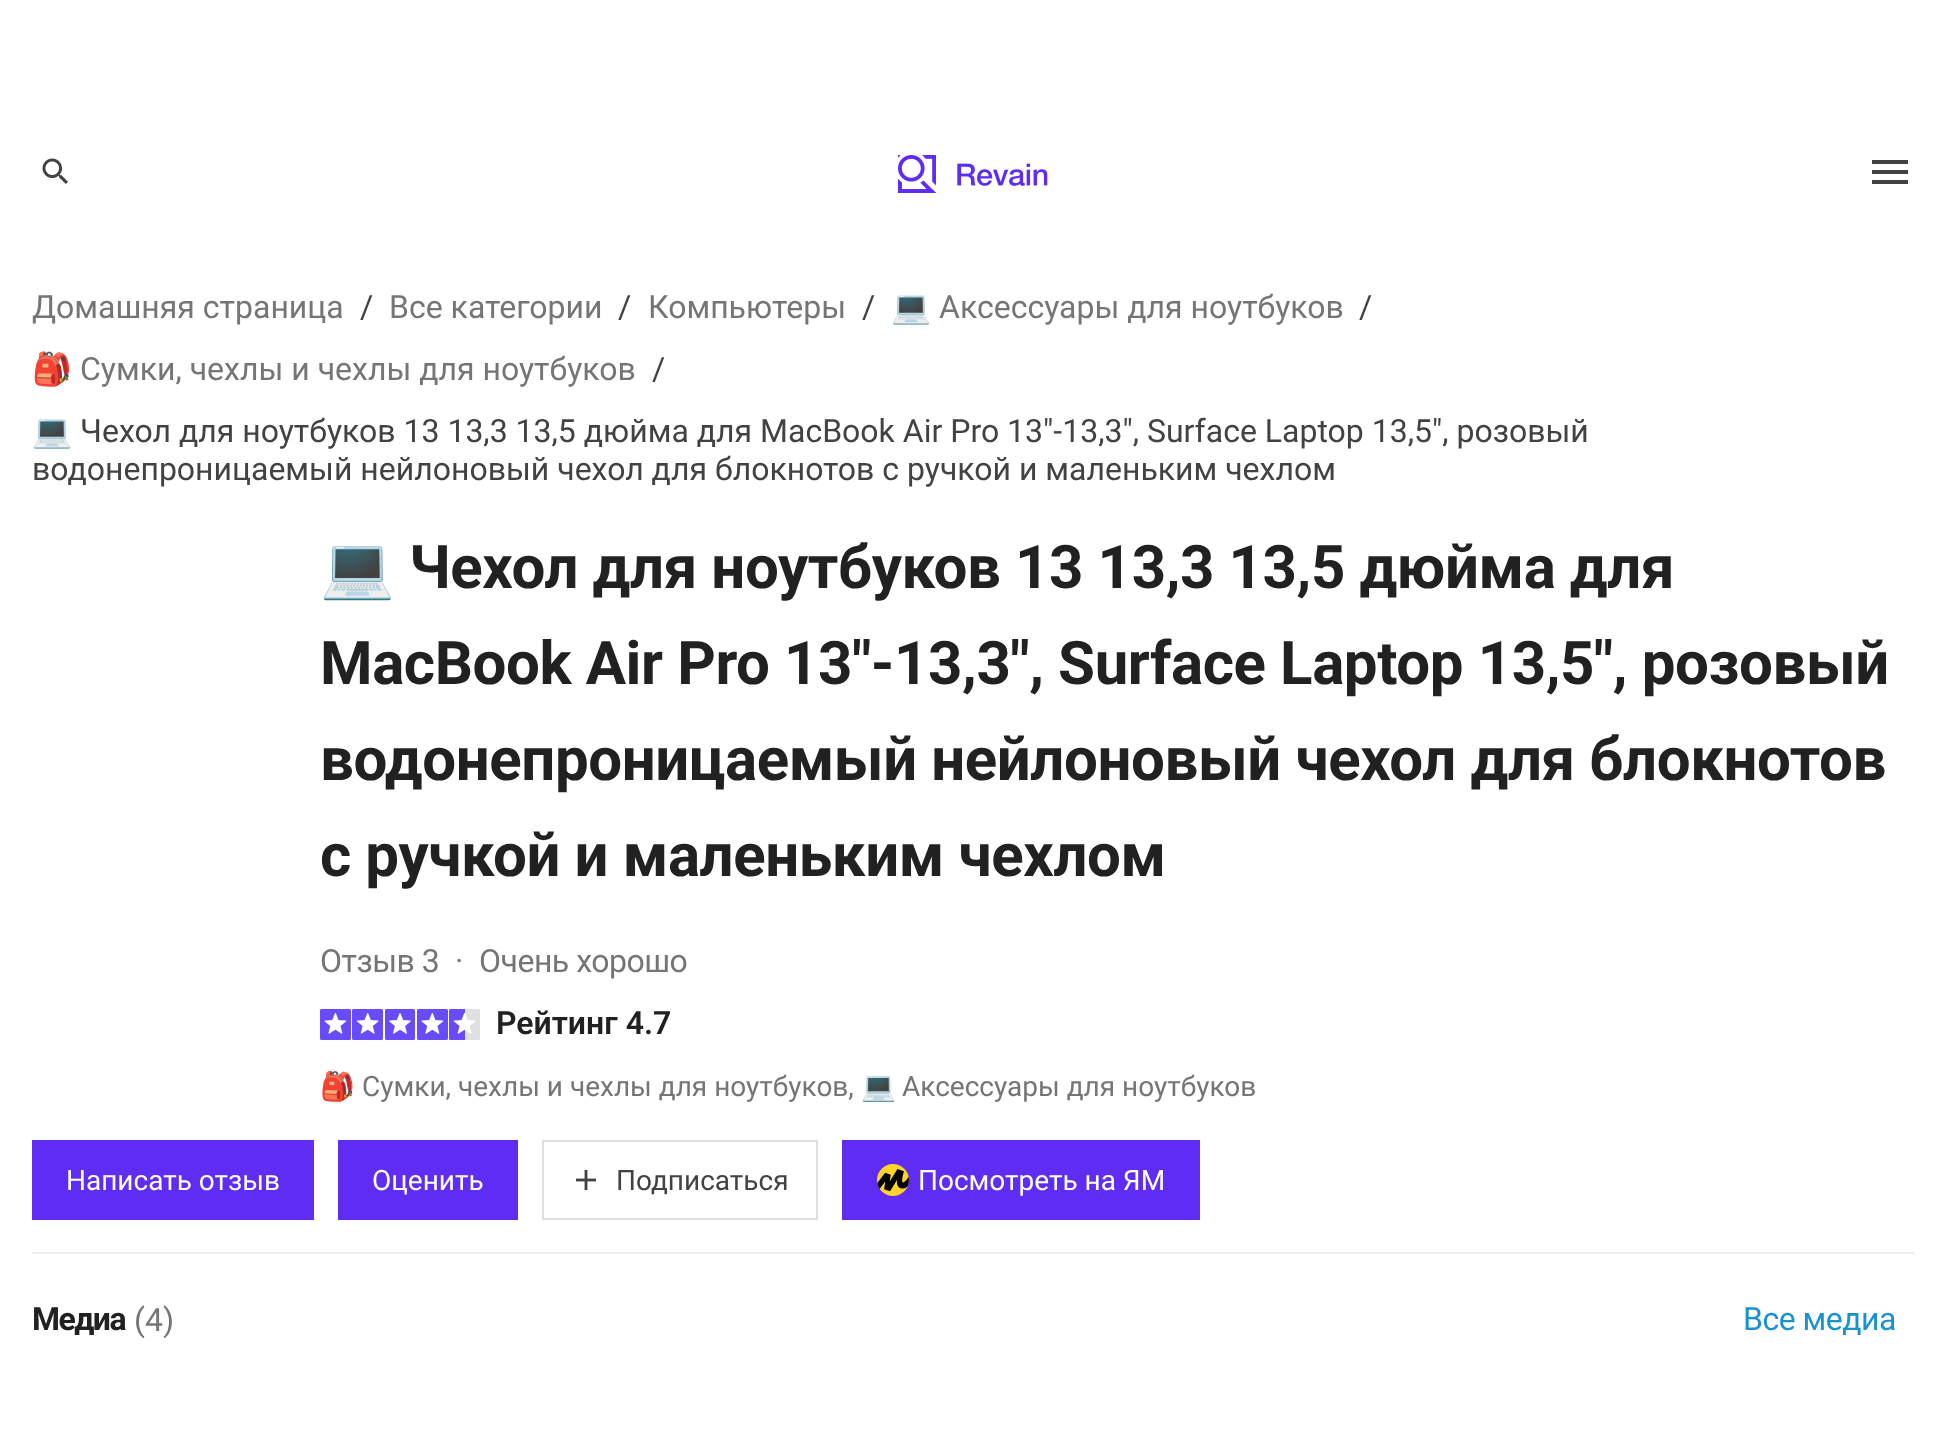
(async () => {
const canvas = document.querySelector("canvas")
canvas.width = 1946
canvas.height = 1434
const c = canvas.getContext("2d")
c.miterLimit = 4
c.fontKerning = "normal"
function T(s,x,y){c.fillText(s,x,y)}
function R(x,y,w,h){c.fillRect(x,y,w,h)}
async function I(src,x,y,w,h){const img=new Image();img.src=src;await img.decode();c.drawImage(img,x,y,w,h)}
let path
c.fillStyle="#fff"
R(0,0,1946,1434)
await I("1.png",42,158,26,26)
await I("2.png",898,155,150,38)
c.fillStyle="#424242"
path = new Path2D("M1872 184h36v-4h-36zm0-10h36v-4h-36zm0-14v4h36v-4z")
c.fill(path)
c.font="32px Roboto"
c.fillStyle="#757575"
T("Домашняя страница",32,318)
c.fillStyle="#424242"
T("/",360,318)
c.fillStyle="#757575"
T("Все категории",389,318)
c.fillStyle="#424242"
T("/",618,318)
c.fillStyle="#757575"
T("Компьютеры",648,318)
c.fillStyle="#424242"
T("/",862,318)
c.font="32px Noto Color Emoji"
c.fillStyle="#757575"
T("💻",891,318)
c.font="32px Roboto"
T("Аксессуары для ноутбуков",939,318)
c.fillStyle="#424242"
T("/",1359,318)
c.font="32px Noto Color Emoji"
c.fillStyle="#757575"
T("🎒",32,380)
c.font="32px Roboto"
T("Сумки, чехлы и чехлы для ноутбуков",80,380)
c.fillStyle="#424242"
T("/",652,380)
c.font="32px Noto Color Emoji"
T("💻",32,442)
c.font="32px Roboto"
T("Чехол для ноутбуков 13 13,3 13,5 дюйма для MacBook Air Pro 13\"-13,3\", Surface Laptop 13,5\", розовый",80,442)
T("водонепроницаемый нейлоновый чехол для блокнотов с ручкой и маленьким чехлом",32,480)
c.letterSpacing="-0.4px"
c.font="bold 60px Noto Color Emoji"
c.fillStyle="#212121"
T("💻",320,588)
c.font="bold 60px Roboto"
T("Чехол для ноутбуков 13 13,3 13,5 дюйма для",409,588)
T("MacBook Air Pro 13\"-13,3\", Surface Laptop 13,5\", розовый",320,684)
T("водонепроницаемый нейлоновый чехол для блокнотов",320,780)
T("с ручкой и маленьким чехлом",320,876)
c.letterSpacing="-0.5px"
c.font="32px Roboto"
c.fillStyle="#757575"
T("Отзыв 3",320,972)
T("·",455,972)
T("Очень хорошо",479,972)
await I("3.png",320,1009,160,31)
c.letterSpacing="0px"
c.font="600 32px Roboto"
c.fillStyle="#212121"
T("Рейтинг 4.7",496,1034)
c.font="28px Noto Color Emoji"
c.fillStyle="#757575"
T("🎒",320,1096)
c.font="28px Roboto"
T("Сумки, чехлы и чехлы для ноутбуков,",362,1096)
c.font="28px Noto Color Emoji"
T("💻",861,1096)
c.font="28px Roboto"
T("Аксессуары для ноутбуков",902,1096)
c.fillStyle="#5e2cf2"
R(32,1140,282,80)
c.fillStyle="#fff"
T("Написать отзыв",66,1190)
c.fillStyle="#5e2cf2"
R(338,1140,180,80)
c.fillStyle="#fff"
T("Оценить",372,1190)
c.strokeStyle="#e0e0e0"
c.lineWidth=2
c.strokeRect(543,1141,274,78)
await I("4.png",576,1170,20,20)
c.fillStyle="#424242"
T("Подписаться",616,1190)
c.fillStyle="#5e2cf2"
R(842,1140,358,80)
await I("5.png",877,1164,32,32)
c.fillStyle="#fff"
T("Посмотреть на ЯM",918,1190)
c.fillStyle="#eee"
R(32,1252,1882,2)
c.letterSpacing="-1.5px"
c.font="bold 32px Roboto"
c.fillStyle="#212121"
T("Медиа",32,1330)
c.letterSpacing="0px"
c.font="32px Roboto"
c.fillStyle="#757575"
T("(4)",134,1331)
c.letterSpacing="-0.5px"
c.fillStyle="#1992d4"
T("Все медиа",1743,1330)
})()
